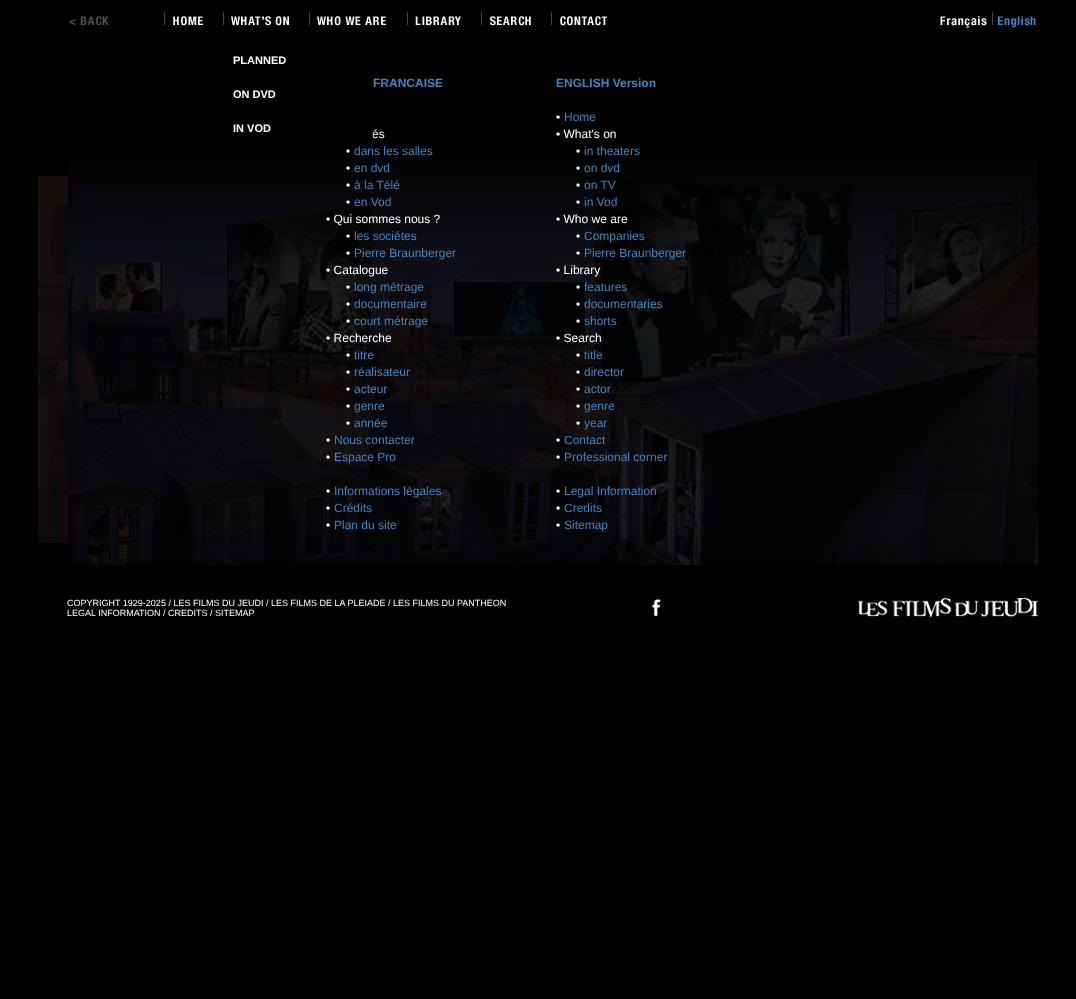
(async () => {
const canvas = document.querySelector("canvas")
canvas.width = 1076
canvas.height = 999
const c = canvas.getContext("2d")
c.miterLimit = 4
c.fontKerning = "normal"
function T(s,x,y){c.fillText(s,x,y)}
function R(x,y,w,h){c.fillRect(x,y,w,h)}
async function I(src,x,y,w,h){const img=new Image();img.src=src;await img.decode();c.drawImage(img,x,y,w,h)}
c.fillStyle="#000"
R(0,0,1076,999)
await I("1.png",69,16,40,10)
await I("2.png",164,12,39,14)
await I("3.png",223,12,66,14)
await I("4.png",309,12,77,14)
await I("5.png",407,12,54,13)
await I("6.png",481,12,50,14)
await I("7.png",551,12,56,14)
await I("8.png",940,12,96,16)
c.font="bold 11px Liberation Sans"
c.fillStyle="#fff"
T("PLANNED",233,64)
T("ON DVD",233,98)
c.font="12px Liberation Sans"
T("és",372,138)
c.fillStyle="#000000b3"
R(372,133,1,4)
c.font="bold 11px Liberation Sans"
c.fillStyle="#fff"
T("IN VOD",233,132)
await I("9.png",38,176,30,367)
await I("10.png",68,159,970,406)
c.font="bold 12px Liberation Sans"
c.fillStyle="#4084c0"
T("FRANCAISE",373,87)
c.font="12px Liberation Sans"
c.fillStyle="#fff"
T("•",346,155)
c.fillStyle="#4084c0"
T("dans les salles",354,155)
c.fillStyle="#fff"
T("•",346,172)
c.fillStyle="#4084c0"
T("en dvd",354,172)
c.fillStyle="#fff"
T("•",346,189)
c.fillStyle="#4084c0"
T("à la Télé",354,189)
c.fillStyle="#fff"
T("•",346,206)
c.fillStyle="#4084c0"
T("en Vod",354,206)
c.fillStyle="#fff"
T("• Qui sommes nous ?",326,223)
T("•",346,240)
c.fillStyle="#4084c0"
T("les sociétes",354,240)
c.fillStyle="#fff"
T("•",346,257)
c.fillStyle="#4084c0"
T("Pierre Braunberger",354,257)
c.fillStyle="#fff"
T("• Catalogue",326,274)
T("•",346,291)
c.fillStyle="#4084c0"
T("long métrage",354,291)
c.fillStyle="#fff"
T("•",346,308)
c.fillStyle="#4084c0"
T("documentaire",354,308)
c.fillStyle="#fff"
T("•",346,325)
c.fillStyle="#4084c0"
T("court métrage",354,325)
c.fillStyle="#fff"
T("• Recherche",326,342)
T("•",346,359)
c.fillStyle="#4084c0"
T("titre",354,359)
c.fillStyle="#fff"
T("•",346,376)
c.fillStyle="#4084c0"
T("réalisateur",354,376)
c.fillStyle="#fff"
T("•",346,393)
c.fillStyle="#4084c0"
T("acteur",354,393)
c.fillStyle="#fff"
T("•",346,410)
c.fillStyle="#4084c0"
T("genre",354,410)
c.fillStyle="#fff"
T("•",346,427)
c.fillStyle="#4084c0"
T("année",354,427)
c.fillStyle="#fff"
T("•",326,444)
c.fillStyle="#4084c0"
T("Nous contacter",334,444)
c.fillStyle="#fff"
T("•",326,461)
c.fillStyle="#4084c0"
T("Espace Pro",334,461)
c.fillStyle="#fff"
T("•",326,495)
c.fillStyle="#4084c0"
T("Informations légales",334,495)
c.fillStyle="#fff"
T("•",326,512)
c.fillStyle="#4084c0"
T("Crédits",334,512)
c.fillStyle="#fff"
T("•",326,529)
c.fillStyle="#4084c0"
T("Plan du site",334,529)
c.font="bold 12px Liberation Sans"
T("ENGLISH Version",556,87)
c.font="12px Liberation Sans"
c.fillStyle="#fff"
T("•",556,121)
c.fillStyle="#4084c0"
T("Home",564,121)
c.fillStyle="#fff"
T("• What's on",556,138)
T("•",576,155)
c.fillStyle="#4084c0"
T("in theaters",584,155)
c.fillStyle="#fff"
T("•",576,172)
c.fillStyle="#4084c0"
T("on dvd",584,172)
c.fillStyle="#fff"
T("•",576,189)
c.fillStyle="#4084c0"
T("on TV",584,189)
c.fillStyle="#fff"
T("•",576,206)
c.fillStyle="#4084c0"
T("in Vod",584,206)
c.fillStyle="#fff"
T("• Who we are",556,223)
T("•",576,240)
c.fillStyle="#4084c0"
T("Companies",584,240)
c.fillStyle="#fff"
T("•",576,257)
c.fillStyle="#4084c0"
T("Pierre Braunberger",584,257)
c.fillStyle="#fff"
T("• Library",556,274)
T("•",576,291)
c.fillStyle="#4084c0"
T("features",584,291)
c.fillStyle="#fff"
T("•",576,308)
c.fillStyle="#4084c0"
T("documentaries",584,308)
c.fillStyle="#fff"
T("•",576,325)
c.fillStyle="#4084c0"
T("shorts",584,325)
c.fillStyle="#fff"
T("• Search",556,342)
T("•",576,359)
c.fillStyle="#4084c0"
T("title",584,359)
c.fillStyle="#fff"
T("•",576,376)
c.fillStyle="#4084c0"
T("director",584,376)
c.fillStyle="#fff"
T("•",576,393)
c.fillStyle="#4084c0"
T("actor",584,393)
c.fillStyle="#fff"
T("•",576,410)
c.fillStyle="#4084c0"
T("genre",584,410)
c.fillStyle="#fff"
T("•",576,427)
c.fillStyle="#4084c0"
T("year",584,427)
c.fillStyle="#fff"
T("•",556,444)
c.fillStyle="#4084c0"
T("Contact",564,444)
c.fillStyle="#fff"
T("•",556,461)
c.fillStyle="#4084c0"
T("Professional corner",564,461)
c.fillStyle="#fff"
T("•",556,495)
c.fillStyle="#4084c0"
T("Legal Information",564,495)
c.fillStyle="#fff"
T("•",556,512)
c.fillStyle="#4084c0"
T("Credits",564,512)
c.fillStyle="#fff"
T("•",556,529)
c.fillStyle="#4084c0"
T("Sitemap",564,529)
c.font="9px Liberation Sans"
c.fillStyle="#fff"
T("COPYRIGHT 1929-2025 / LES FILMS DU JEUDI / LES FILMS DE LA PLEIADE / LES FILMS DU PANTHEON",67,606)
T("LEGAL INFORMATION / CREDITS / SITEMAP",67,616)
await I("11.png",652,599,9,17)
await I("12.png",858,598,180,19)
})()
